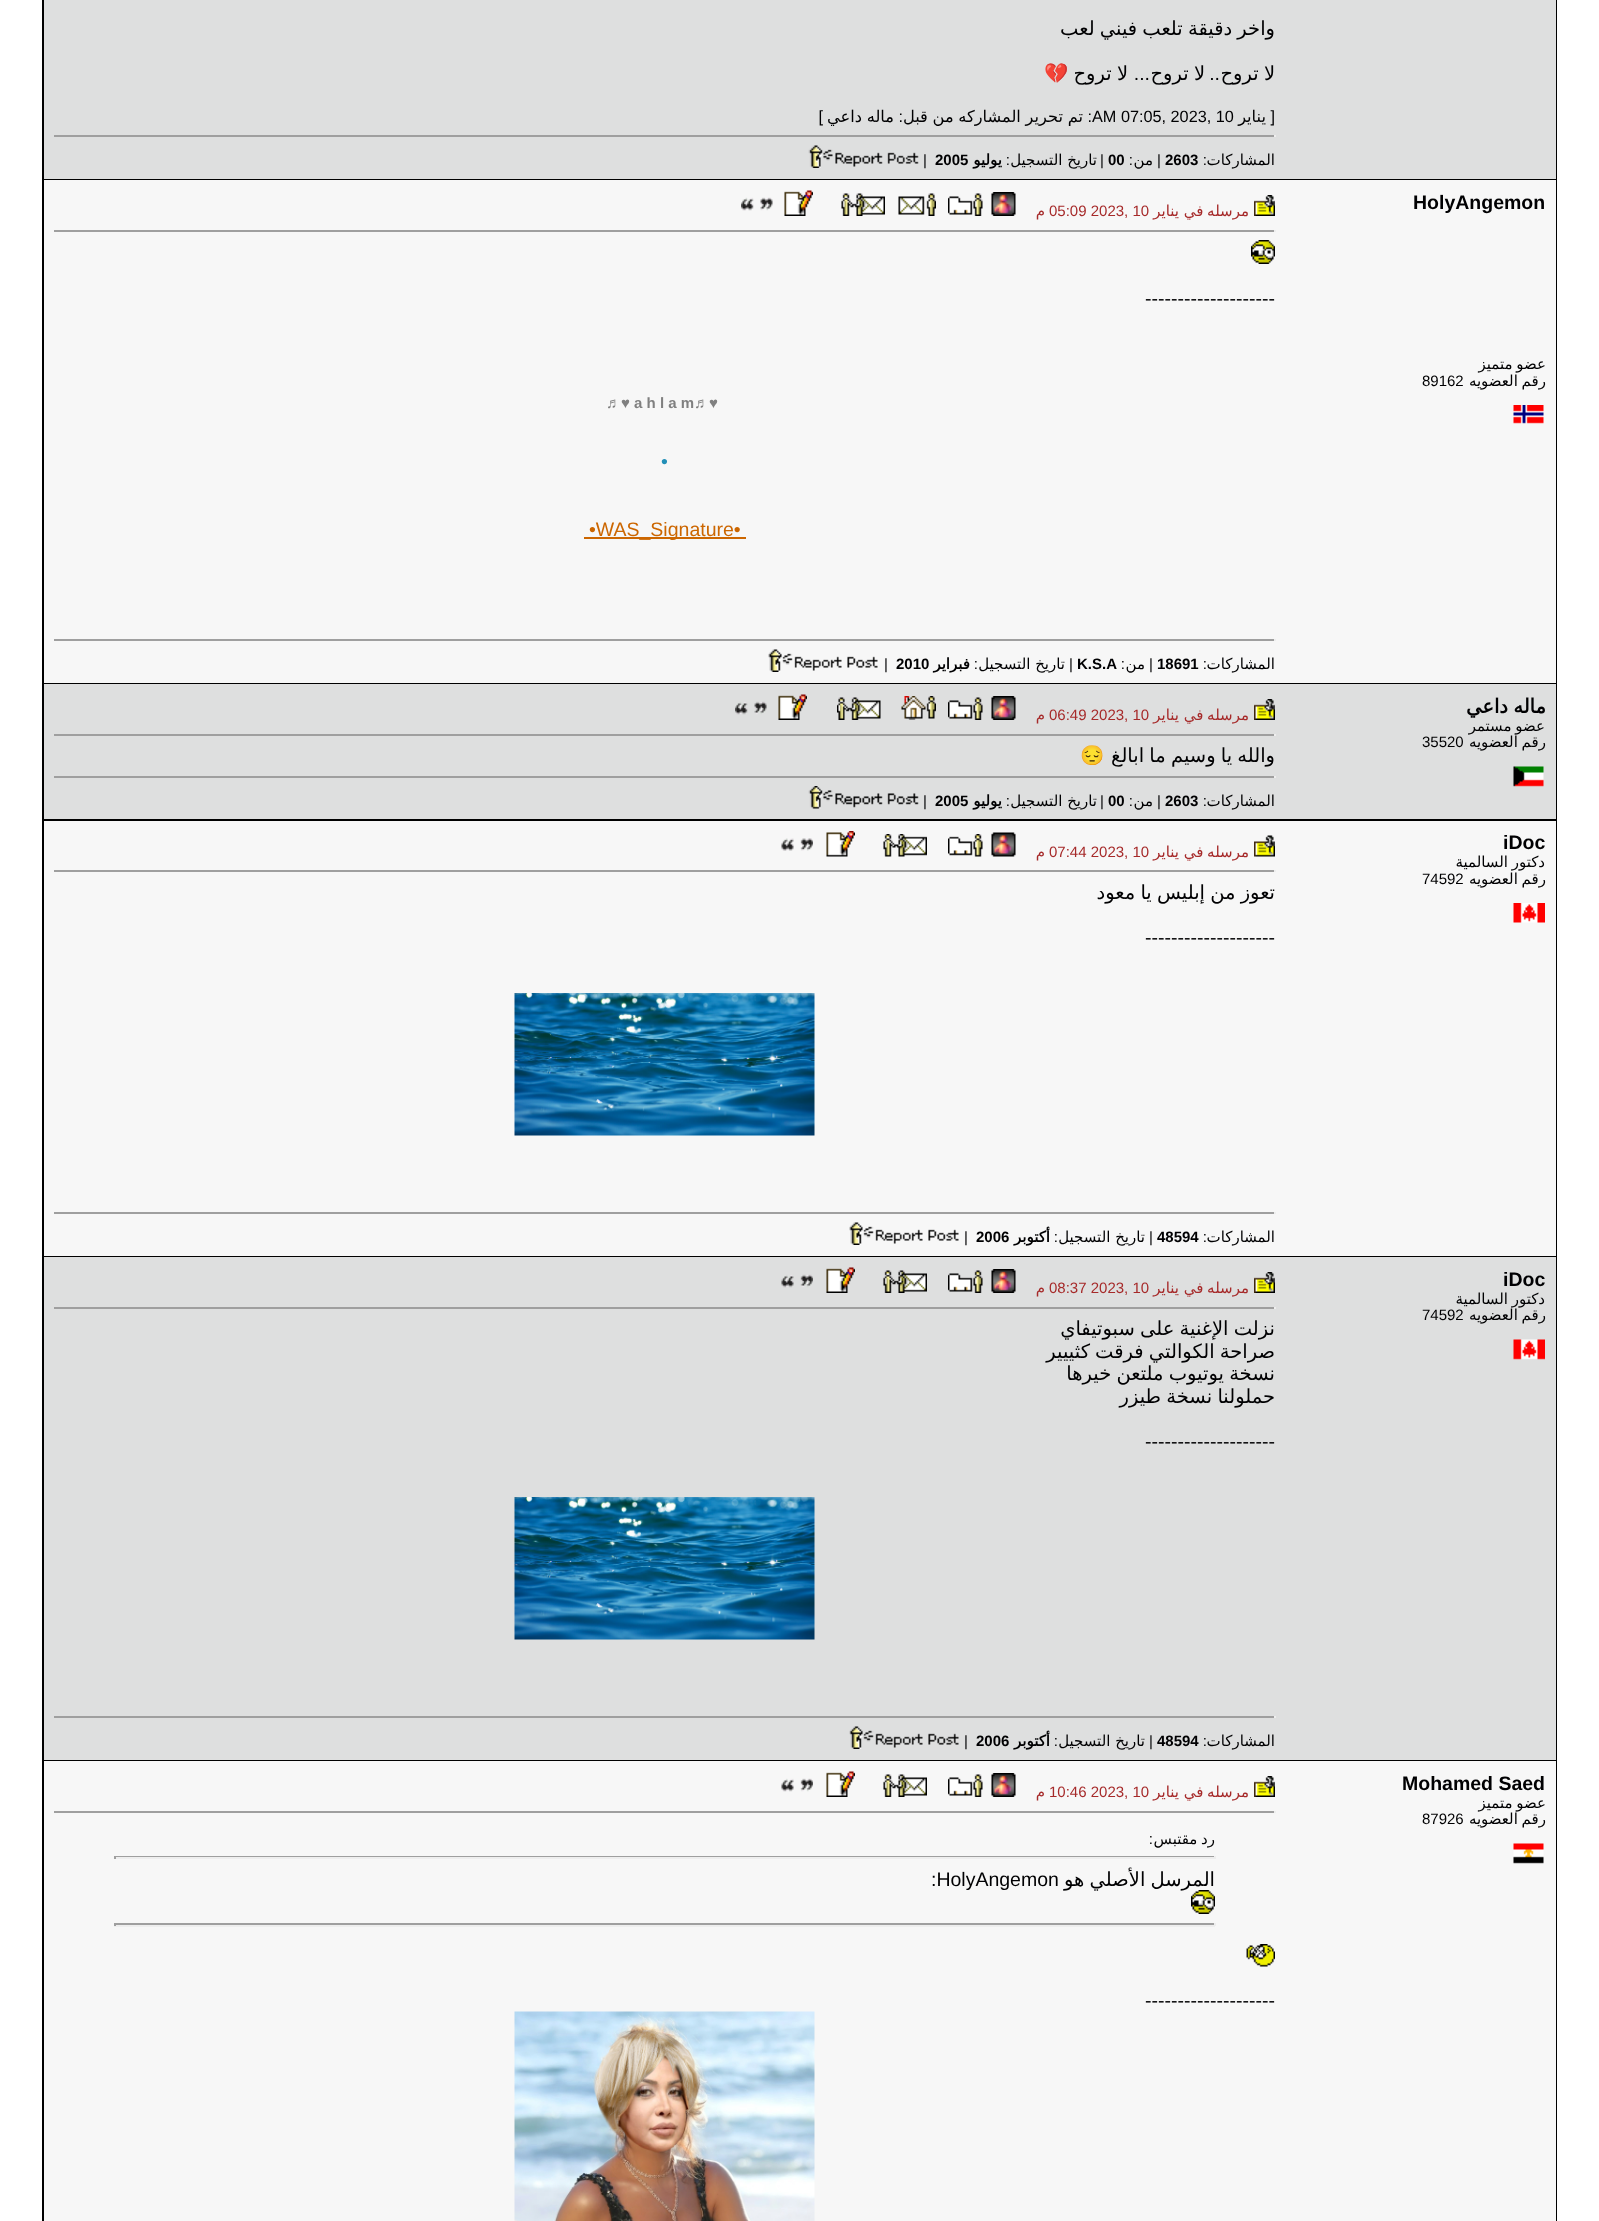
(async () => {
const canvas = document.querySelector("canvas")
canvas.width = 1599
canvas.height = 2221
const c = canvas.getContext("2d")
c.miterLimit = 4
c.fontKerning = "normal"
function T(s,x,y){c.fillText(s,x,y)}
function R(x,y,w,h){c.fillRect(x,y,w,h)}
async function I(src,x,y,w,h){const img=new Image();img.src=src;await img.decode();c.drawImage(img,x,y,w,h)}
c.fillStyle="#fff"
R(0,0,1599,2221)
c.fillStyle="#000"
R(42,0,1515,2221)
c.fillStyle="#dedfdf"
R(44,0,1512,179)
c.wordSpacing="-1px"
c.direction="rtl"
c.font="19.5px DejaVu Sans"
c.fillStyle="#000002"
T("واخر دقيقة تلعب فيني لعب",1275,35)
T("لا تروح",1275,80)
c.wordSpacing="0px"
c.font="19.5px Liberation Sans"
T("..",1220,80)
c.wordSpacing="-1px"
c.font="19.5px DejaVu Sans"
T("لا تروح",1205,80)
c.wordSpacing="0px"
c.font="19.5px Liberation Sans"
T("...",1150,80)
c.wordSpacing="-1px"
c.font="19.5px DejaVu Sans"
T("لا تروح",1128,80)
c.wordSpacing="0px"
c.direction="ltr"
c.font="19.5px Noto Color Emoji"
T("💔",1044,80)
c.direction="rtl"
c.font="16.25px Liberation Sans"
T("[",1275,122)
c.font="16.25px DejaVu Sans"
T("يناير",1266,122)
c.direction="ltr"
c.font="16.25px Liberation Sans"
T("AM 07:05, 2023, 10",1092,122)
c.direction="rtl"
T(":",1092,122)
c.wordSpacing="-0.5px"
c.font="16.25px DejaVu Sans"
T("تم تحرير المشاركه من قبل",1083,122)
c.wordSpacing="0px"
c.font="16.25px Liberation Sans"
T(":",903,122)
c.wordSpacing="-0.5px"
c.font="16.25px DejaVu Sans"
T("ماله داعي",894,122)
c.wordSpacing="0px"
c.font="16.25px Liberation Sans"
T("]",823,122)
c.fillStyle="#9f9f9f"
R(54,135,1221,2)
c.fillStyle="#eee"
R(1274,135,2,2)
c.font="15px DejaVu Sans"
c.fillStyle="#000002"
T("المشاركات",1275,165)
c.font="15px Liberation Sans"
T(":",1207,165)
c.direction="ltr"
c.font="bold 15px Liberation Sans"
T("2603",1165,165)
c.direction="rtl"
c.font="15px Liberation Sans"
T("|",1161,165)
c.font="15px DejaVu Sans"
T("من",1153,165)
c.font="15px Liberation Sans"
T(":",1133,165)
c.direction="ltr"
c.font="bold 15px Liberation Sans"
T("00",1108,165)
c.direction="rtl"
c.font="15px Liberation Sans"
T("|",1104,165)
c.font="15px DejaVu Sans"
T("تاريخ التسجيل",1097,165)
c.font="15px Liberation Sans"
T(":",1010,165)
c.font="bold 15px DejaVu Sans"
T("يوليو",1002,165)
c.direction="ltr"
c.font="bold 15px Liberation Sans"
T("2005",935,165)
c.font="15px Liberation Sans"
T("|",923,165)
await I("1.png",808,145,111,23)
c.fillStyle="#f7f7f7"
R(44,180,1512,503)
c.font="bold 19.5px Liberation Sans"
c.fillStyle="#000002"
T("HolyAngemon",1413,209)
c.wordSpacing="-1px"
c.direction="rtl"
c.font="15px DejaVu Sans"
T("عضو متميز",1546,369)
T("رقم العضويه",1546,386)
c.wordSpacing="0px"
c.direction="ltr"
c.font="15px Liberation Sans"
T("89162",1422,386)
await I("2.png",1513,405,31,19)
await I("3.png",1254,195,21,21)
c.wordSpacing="-1px"
c.direction="rtl"
c.font="15px DejaVu Sans"
c.fillStyle="#a62a2a"
T("مرسله في",1249,216)
c.wordSpacing="0px"
T("يناير",1179,216)
c.direction="ltr"
c.font="15px Liberation Sans"
T("05:09 2023, 10",1049,216)
c.direction="rtl"
c.font="15px DejaVu Sans"
T("م",1045,216)
await I("4.png",991,192,25,24)
await I("5.png",948,193,35,23)
await I("6.png",898,193,38,23)
await I("7.png",841,193,44,23)
await I("8.png",784,190,29,26)
await I("9.png",741,197,32,14)
c.fillStyle="#9f9f9f"
R(54,230,1221,2)
c.fillStyle="#eee"
R(1274,230,2,2)
await I("10.png",1251,240,24,24)
c.direction="ltr"
c.font="19.5px Liberation Sans"
c.fillStyle="#000002"
T("--------------------",1145,305)
c.font="bold 15px Liberation Sans"
c.fillStyle="#808080"
T("♬♥ a h l a m♬♥",606,408)
c.font="19.5px Liberation Sans"
c.fillStyle="#228fb7"
T("•",661,468)
c.fillStyle="#c60"
R(584,537,162,2)
T("•WAS_Signature•",589,536)
c.fillStyle="#9f9f9f"
R(54,639,1221,2)
c.fillStyle="#eee"
R(1274,639,2,2)
c.direction="rtl"
c.font="15px DejaVu Sans"
c.fillStyle="#000002"
T("المشاركات",1275,669)
c.font="15px Liberation Sans"
T(":",1207,669)
c.direction="ltr"
c.font="bold 15px Liberation Sans"
T("18691",1157,669)
c.direction="rtl"
c.font="15px Liberation Sans"
T("|",1153,669)
c.font="15px DejaVu Sans"
T("من",1145,669)
c.font="15px Liberation Sans"
T(":",1125,669)
c.direction="ltr"
c.font="bold 15px Liberation Sans"
T("K.S.A",1077,669)
c.direction="rtl"
c.font="15px Liberation Sans"
T("|",1073,669)
c.font="15px DejaVu Sans"
T("تاريخ التسجيل",1065,669)
c.font="15px Liberation Sans"
T(":",978,669)
c.font="bold 15px DejaVu Sans"
T("فبراير",970,669)
c.direction="ltr"
c.font="bold 15px Liberation Sans"
T("2010",896,669)
c.font="15px Liberation Sans"
T("|",884,669)
await I("11.png",768,649,110,23)
c.fillStyle="#dedfdf"
R(44,684,1512,135)
c.wordSpacing="-1px"
c.direction="rtl"
c.font="bold 19.5px DejaVu Sans"
c.fillStyle="#000002"
T("ماله داعي",1546,713)
c.font="15px DejaVu Sans"
T("عضو مستمر",1545,731)
T("رقم العضويه",1546,747)
c.wordSpacing="0px"
c.direction="ltr"
c.font="15px Liberation Sans"
T("35520",1422,747)
await I("12.png",1513,766,31,21)
await I("13.png",1254,699,21,21)
c.wordSpacing="-1px"
c.direction="rtl"
c.font="15px DejaVu Sans"
c.fillStyle="#a62a2a"
T("مرسله في",1249,720)
c.wordSpacing="0px"
T("يناير",1179,720)
c.direction="ltr"
c.font="15px Liberation Sans"
T("06:49 2023, 10",1049,720)
c.direction="rtl"
c.font="15px DejaVu Sans"
T("م",1045,720)
await I("14.png",991,696,25,24)
await I("15.png",948,697,35,23)
await I("16.png",901,696,35,24)
await I("17.png",837,697,44,23)
await I("18.png",778,694,29,26)
await I("19.png",735,701,32,14)
c.fillStyle="#9f9f9f"
R(54,734,1221,2)
c.fillStyle="#eee"
R(1274,734,2,2)
c.wordSpacing="-1px"
c.font="19.5px DejaVu Sans"
c.fillStyle="#000002"
T("والله يا وسيم ما ابالغ",1275,762)
c.wordSpacing="0px"
c.font="19.5px Noto Color Emoji"
T("😔",1105,762)
c.fillStyle="#9f9f9f"
R(54,776,1221,2)
c.fillStyle="#eee"
R(1274,776,2,2)
c.font="15px DejaVu Sans"
c.fillStyle="#000002"
T("المشاركات",1275,806)
c.font="15px Liberation Sans"
T(":",1207,806)
c.direction="ltr"
c.font="bold 15px Liberation Sans"
T("2603",1165,806)
c.direction="rtl"
c.font="15px Liberation Sans"
T("|",1161,806)
c.font="15px DejaVu Sans"
T("من",1153,806)
c.font="15px Liberation Sans"
T(":",1133,806)
c.direction="ltr"
c.font="bold 15px Liberation Sans"
T("00",1108,806)
c.direction="rtl"
c.font="15px Liberation Sans"
T("|",1104,806)
c.font="15px DejaVu Sans"
T("تاريخ التسجيل",1097,806)
c.font="15px Liberation Sans"
T(":",1010,806)
c.font="bold 15px DejaVu Sans"
T("يوليو",1002,806)
c.direction="ltr"
c.font="bold 15px Liberation Sans"
T("2005",935,806)
c.font="15px Liberation Sans"
T("|",923,806)
await I("20.png",808,786,111,23)
c.fillStyle="#f7f7f7"
R(44,821,1512,435)
c.font="bold 19.5px Liberation Sans"
c.fillStyle="#000002"
T("iDoc",1503,849)
c.wordSpacing="-1px"
c.direction="rtl"
c.font="15px DejaVu Sans"
T("دكتور السالمية",1545,867)
T("رقم العضويه",1546,884)
c.wordSpacing="0px"
c.direction="ltr"
c.font="15px Liberation Sans"
T("74592",1422,884)
await I("21.png",1513,903,32,20)
await I("22.png",1254,835,21,22)
c.wordSpacing="-1px"
c.direction="rtl"
c.font="15px DejaVu Sans"
c.fillStyle="#a62a2a"
T("مرسله في",1249,857)
c.wordSpacing="0px"
T("يناير",1179,857)
c.direction="ltr"
c.font="15px Liberation Sans"
T("07:44 2023, 10",1049,857)
c.direction="rtl"
c.font="15px DejaVu Sans"
T("م",1045,857)
await I("23.png",991,832,25,25)
await I("24.png",948,834,35,23)
await I("25.png",883,834,44,23)
await I("26.png",826,831,29,26)
await I("27.png",781,838,32,13)
c.fillStyle="#9f9f9f"
R(54,870,1221,2)
c.fillStyle="#eee"
R(1274,870,2,2)
c.wordSpacing="-1px"
c.font="19.5px DejaVu Sans"
c.fillStyle="#000002"
T("تعوز من إبليس يا معود",1275,899)
c.wordSpacing="0px"
c.direction="ltr"
c.font="19.5px Liberation Sans"
T("--------------------",1145,944)
await I("28.png",514,993,301,143)
c.fillStyle="#9f9f9f"
R(54,1212,1221,2)
c.fillStyle="#eee"
R(1274,1212,2,2)
c.direction="rtl"
c.font="15px DejaVu Sans"
c.fillStyle="#000002"
T("المشاركات",1275,1242)
c.font="15px Liberation Sans"
T(":",1207,1242)
c.direction="ltr"
c.font="bold 15px Liberation Sans"
T("48594",1157,1242)
c.direction="rtl"
c.font="15px Liberation Sans"
T("|",1153,1242)
c.font="15px DejaVu Sans"
T("تاريخ التسجيل",1145,1242)
c.font="15px Liberation Sans"
T(":",1058,1242)
c.font="bold 15px DejaVu Sans"
T("أكتوبر",1050,1242)
c.direction="ltr"
c.font="bold 15px Liberation Sans"
T("2006",976,1242)
c.font="15px Liberation Sans"
T("|",964,1242)
await I("11.png",849,1222,110,23)
c.fillStyle="#dedfdf"
R(44,1257,1512,503)
c.font="bold 19.5px Liberation Sans"
c.fillStyle="#000002"
T("iDoc",1503,1286)
c.wordSpacing="-1px"
c.direction="rtl"
c.font="15px DejaVu Sans"
T("دكتور السالمية",1545,1304)
T("رقم العضويه",1546,1320)
c.wordSpacing="0px"
c.direction="ltr"
c.font="15px Liberation Sans"
T("74592",1422,1320)
await I("29.png",1513,1339,32,21)
await I("13.png",1254,1272,21,21)
c.wordSpacing="-1px"
c.direction="rtl"
c.font="15px DejaVu Sans"
c.fillStyle="#a62a2a"
T("مرسله في",1249,1293)
c.wordSpacing="0px"
T("يناير",1179,1293)
c.direction="ltr"
c.font="15px Liberation Sans"
T("08:37 2023, 10",1049,1293)
c.direction="rtl"
c.font="15px DejaVu Sans"
T("م",1045,1293)
await I("14.png",991,1269,25,24)
await I("15.png",948,1270,35,23)
await I("30.png",883,1270,44,23)
await I("18.png",826,1267,29,26)
await I("31.png",781,1274,32,14)
c.fillStyle="#9f9f9f"
R(54,1307,1221,2)
c.fillStyle="#eee"
R(1274,1307,2,2)
c.wordSpacing="-1px"
c.font="19.5px DejaVu Sans"
c.fillStyle="#000002"
T("نزلت الإغنية على سبوتيفاي",1275,1335)
T("صراحة الكوالتي فرقت كثييير",1275,1358)
T("نسخة يوتيوب ملتعن خيرها",1275,1380)
T("حملولنا نسخة طيزر",1275,1403)
c.wordSpacing="0px"
c.direction="ltr"
c.font="19.5px Liberation Sans"
T("--------------------",1145,1448)
await I("32.png",514,1497,301,143)
c.fillStyle="#9f9f9f"
R(54,1716,1221,2)
c.fillStyle="#eee"
R(1274,1716,2,2)
c.direction="rtl"
c.font="15px DejaVu Sans"
c.fillStyle="#000002"
T("المشاركات",1275,1746)
c.font="15px Liberation Sans"
T(":",1207,1746)
c.direction="ltr"
c.font="bold 15px Liberation Sans"
T("48594",1157,1746)
c.direction="rtl"
c.font="15px Liberation Sans"
T("|",1153,1746)
c.font="15px DejaVu Sans"
T("تاريخ التسجيل",1145,1746)
c.font="15px Liberation Sans"
T(":",1058,1746)
c.font="bold 15px DejaVu Sans"
T("أكتوبر",1050,1746)
c.direction="ltr"
c.font="bold 15px Liberation Sans"
T("2006",976,1746)
c.font="15px Liberation Sans"
T("|",964,1746)
await I("33.png",849,1726,110,23)
c.fillStyle="#f7f7f7"
R(44,1761,1512,460)
c.font="bold 19.5px Liberation Sans"
c.fillStyle="#000002"
T("Mohamed Saed",1402,1790)
c.wordSpacing="-1px"
c.direction="rtl"
c.font="15px DejaVu Sans"
T("عضو متميز",1546,1808)
T("رقم العضويه",1546,1824)
c.wordSpacing="0px"
c.direction="ltr"
c.font="15px Liberation Sans"
T("87926",1422,1824)
await I("34.png",1513,1843,31,21)
await I("3.png",1254,1776,21,21)
c.wordSpacing="-1px"
c.direction="rtl"
c.font="15px DejaVu Sans"
c.fillStyle="#a62a2a"
T("مرسله في",1249,1797)
c.wordSpacing="0px"
T("يناير",1179,1797)
c.direction="ltr"
c.font="15px Liberation Sans"
T("10:46 2023, 10",1049,1797)
c.direction="rtl"
c.font="15px DejaVu Sans"
T("م",1045,1797)
await I("4.png",991,1773,25,24)
await I("5.png",948,1774,35,23)
await I("7.png",883,1774,44,23)
await I("8.png",826,1771,29,26)
await I("35.png",781,1778,32,14)
c.fillStyle="#9f9f9f"
R(54,1811,1221,2)
c.fillStyle="#eee"
R(1274,1811,2,2)
c.wordSpacing="-1px"
c.fillStyle="#000002"
T("رد مقتبس",1215,1844)
c.wordSpacing="0px"
c.font="15px Liberation Sans"
T(":",1153,1844)
c.fillStyle="#9f9f9f"
R(114,1856,1101,1)
c.fillStyle="#eee"
R(1214,1856,2,3)
R(114,1857,1101,2)
c.fillStyle="#9f9f9f"
R(114,1856,2,3)
c.wordSpacing="-1px"
c.font="19.5px DejaVu Sans"
c.fillStyle="#000002"
T("المرسل الأصلي هو",1215,1886)
c.wordSpacing="0px"
c.direction="ltr"
c.font="19.5px Liberation Sans"
T(":HolyAngemon",931,1886)
await I("36.png",1191,1890,24,24)
c.fillStyle="#9f9f9f"
R(114,1923,1101,2)
c.fillStyle="#eee"
R(1214,1923,2,3)
R(114,1925,1101,2)
c.fillStyle="#9f9f9f"
R(114,1923,2,3)
await I("37.png",1246,1944,29,23)
c.fillStyle="#000002"
T("--------------------",1145,2007)
await I("38.png",514,2011,301,210)
})()
